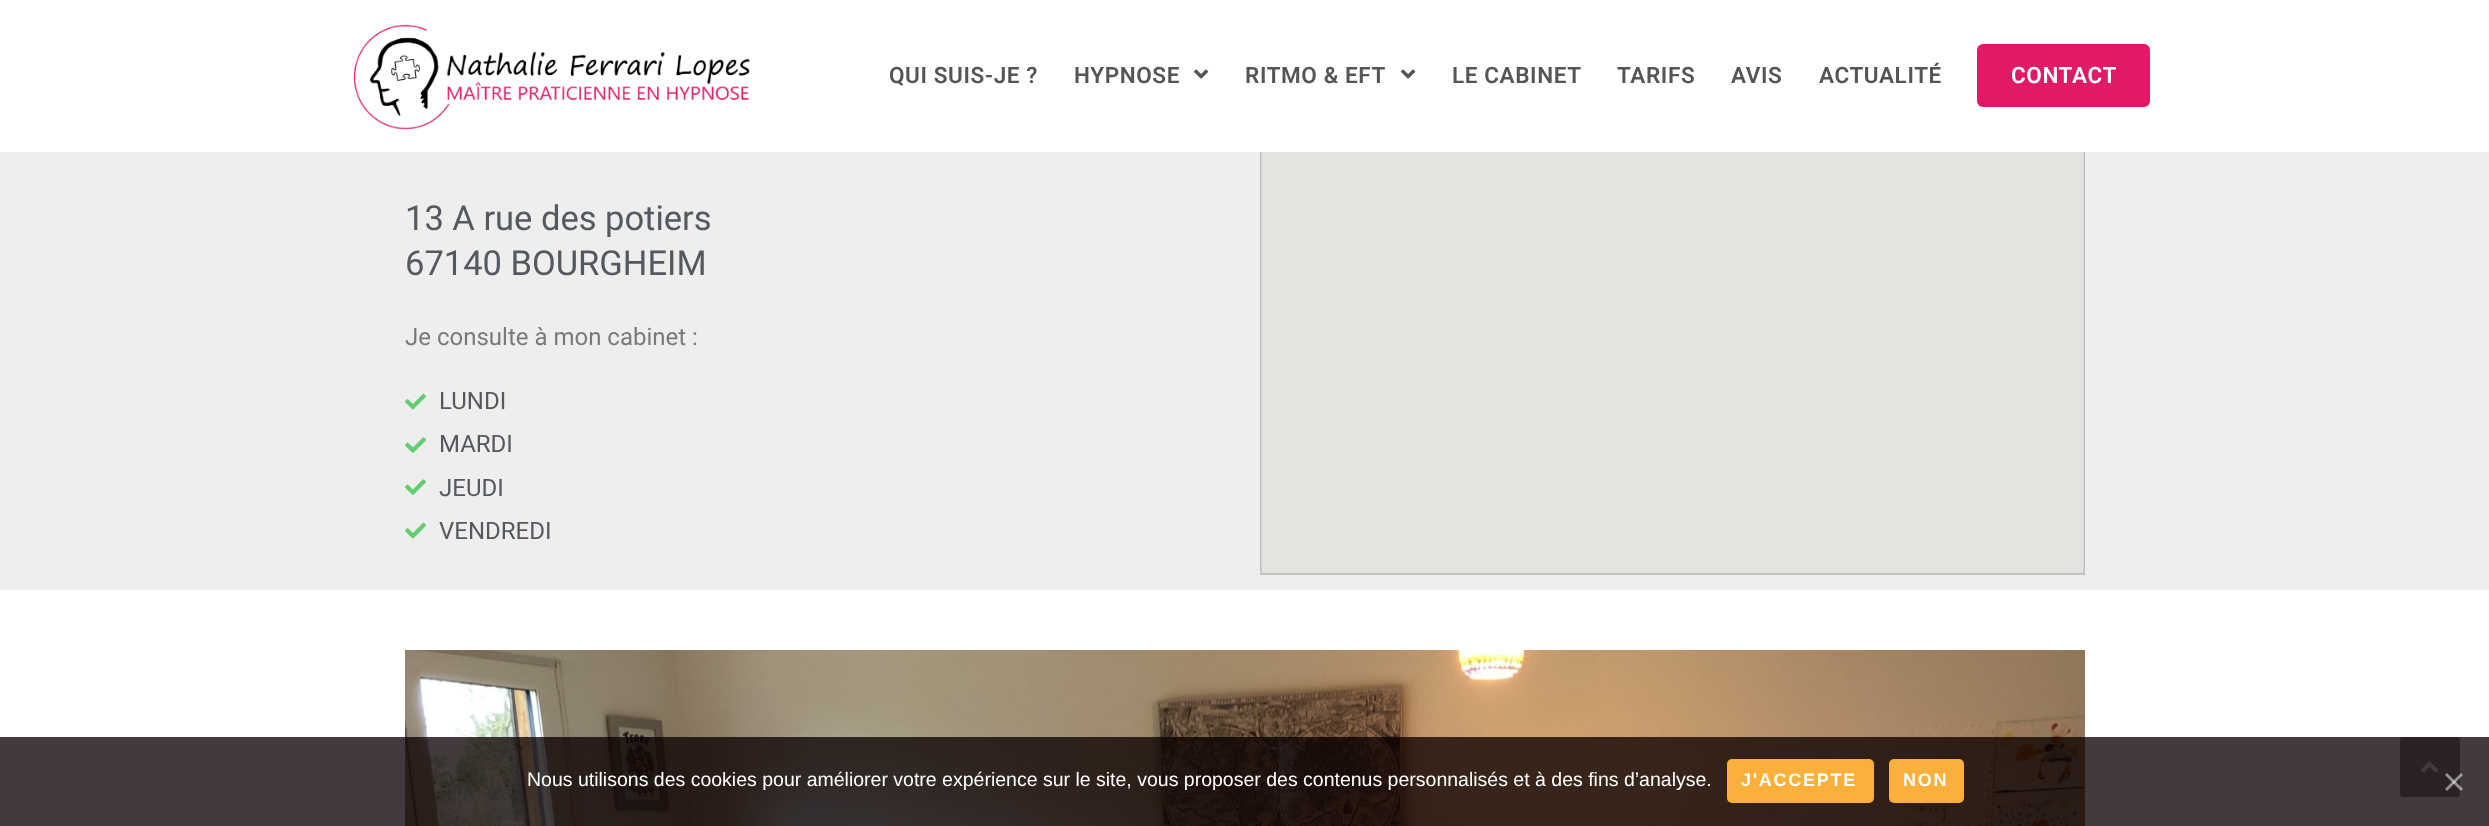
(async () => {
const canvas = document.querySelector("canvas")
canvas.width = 2489
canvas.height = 826
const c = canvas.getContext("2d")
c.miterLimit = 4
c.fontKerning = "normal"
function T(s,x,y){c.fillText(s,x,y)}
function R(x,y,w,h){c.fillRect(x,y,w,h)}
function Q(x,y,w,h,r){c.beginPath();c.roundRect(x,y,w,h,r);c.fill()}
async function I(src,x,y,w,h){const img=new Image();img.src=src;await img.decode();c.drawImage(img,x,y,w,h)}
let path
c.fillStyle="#fff"
R(0,0,2489,826)
await I("1.png",353,24,397,106)
c.letterSpacing="0.6px"
c.font="600 22.5px Roboto"
c.fillStyle="#555"
T("QUI SUIS-JE ?",889,83)
T("HYPNOSE",1074,83)
await I("2.png",1194,69,15,10)
T("RITMO & EFT",1245,83)
await I("2.png",1401,69,15,10)
T("LE CABINET",1452,83)
T("TARIFS",1617,83)
T("AVIS",1731,83)
T("ACTUALITÉ",1819,83)
c.fillStyle="#e01a66"
Q(1977,44,173,63,6)
c.fillStyle="#fff"
T("CONTACT",2011,83)
c.fillStyle="#eee"
R(0,152,2489,438)
c.letterSpacing="0px"
c.font="34.5px Roboto"
c.fillStyle="#54595f"
T("13 A rue des potiers",405,230)
T("67140 BOURGHEIM",405,275)
c.font="24px Roboto"
c.fillStyle="#7a7a7a"
T("Je consulte à mon cabinet :",405,345)
await I("3.png",405,393,21,17)
c.fillStyle="#54595f"
T("LUNDI",439,409)
await I("4.png",405,437,21,16)
T("MARDI",439,452)
await I("4.png",405,479,21,16)
T("JEUDI",439,496)
await I("3.png",405,522,21,17)
T("VENDREDI",439,539)
await I("5.png",1260,152,825,423)
await I("6.png",405,650,1680,176)
c.fillStyle="#999"
Q(2400,737,60,60,3)
await I("7.png",2421,761,17,12)
c.fillStyle="#0a0000c4"
R(0,737,2489,89)
c.font="19.5px Liberation Sans"
c.fillStyle="#fff"
T("Nous utilisons des cookies pour améliorer votre expérience sur le site, vous proposer des contenus personnalisés et à des fins d’analyse.",527,786)
c.fillStyle="#fbb03b"
Q(1727,759,147,44,5)
c.letterSpacing="1.75px"
c.font="bold 18px Liberation Sans"
c.fillStyle="#fff"
T("J'ACCEPTE",1741,786)
c.fillStyle="#fbb03b"
Q(1889,759,75,44,5)
c.fillStyle="#fff"
T("NON",1903,786)
c.fillStyle="#ffffff80"
path = new Path2D("M2461 773l2 2l-16 16l-2-2z")
c.fill(path)
path = new Path2D("M2445 775l2-2l16 16l-2 2z")
c.fill(path)
})()
